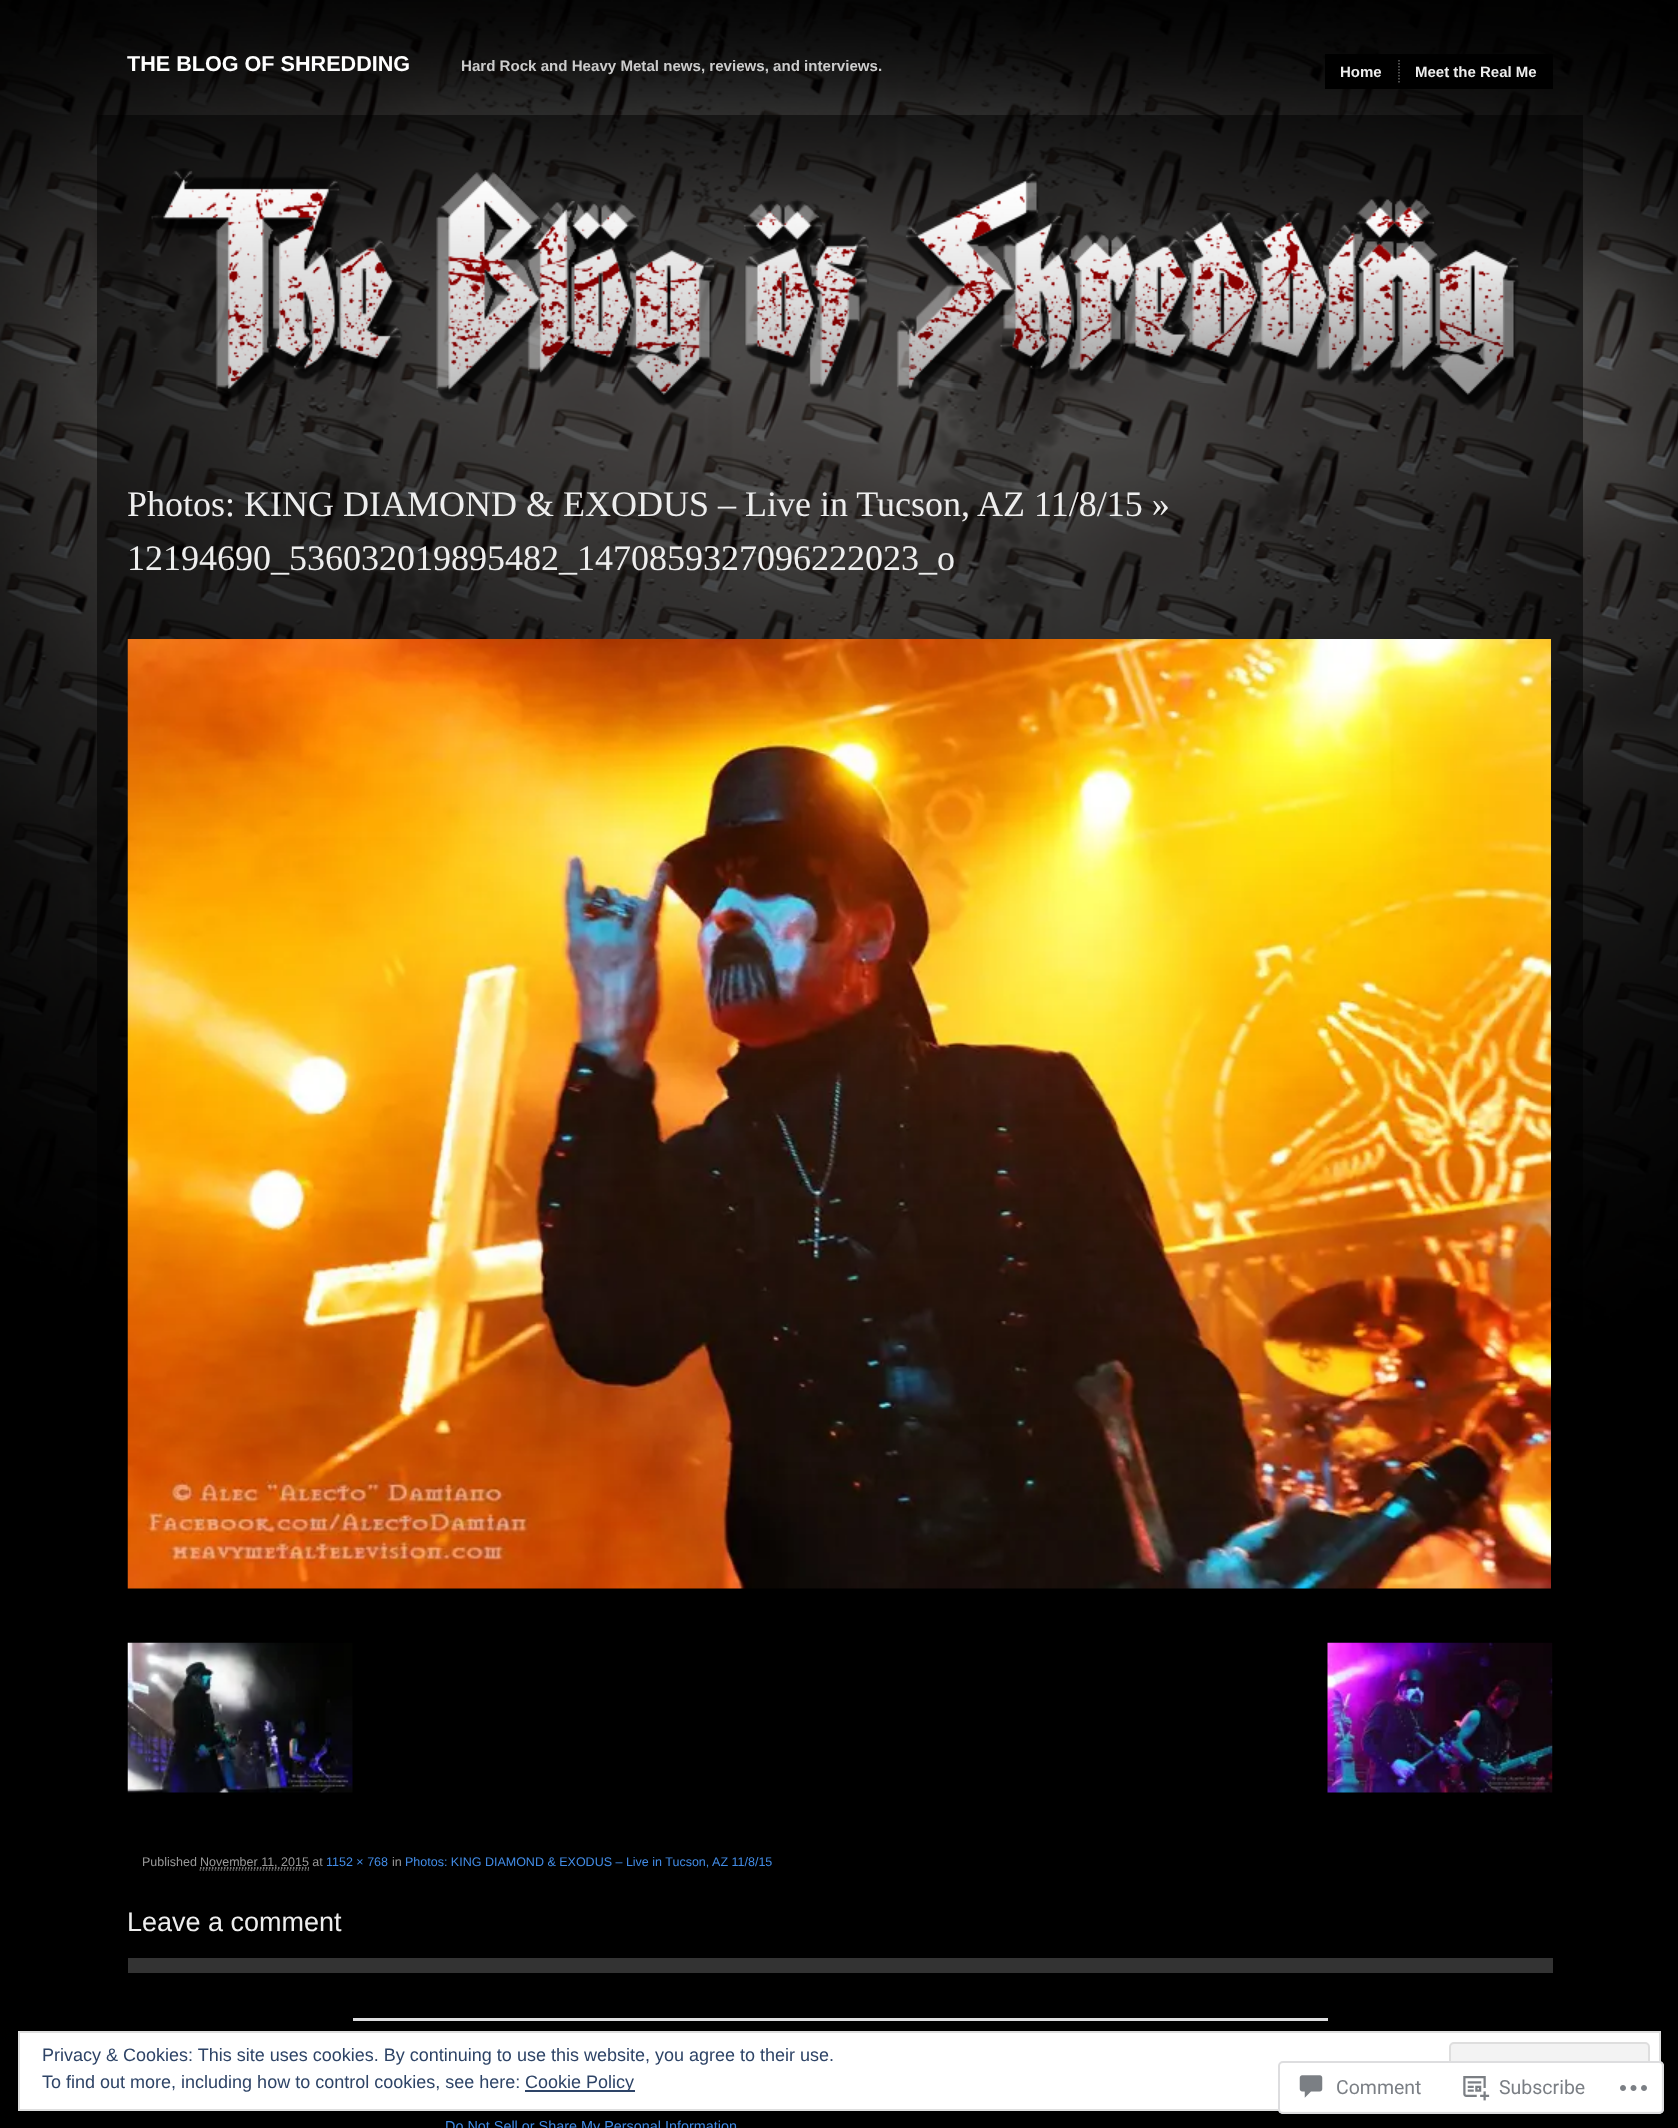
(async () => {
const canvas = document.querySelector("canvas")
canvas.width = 1678
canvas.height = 2128
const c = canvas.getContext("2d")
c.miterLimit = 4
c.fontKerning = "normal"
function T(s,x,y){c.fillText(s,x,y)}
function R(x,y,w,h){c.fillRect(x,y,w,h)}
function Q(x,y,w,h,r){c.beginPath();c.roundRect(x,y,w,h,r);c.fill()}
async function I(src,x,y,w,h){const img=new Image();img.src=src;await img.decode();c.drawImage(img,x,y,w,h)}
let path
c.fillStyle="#000"
R(0,0,1678,2128)
await I("1.png",0,0,1678,1380)
c.font="bold 21.6px Liberation Sans"
c.fillStyle="#fff"
T("THE BLOG OF SHREDDING",127,71)
c.font="bold 15.1px Liberation Sans"
c.fillStyle="#ccc"
T("Hard Rock and Heavy Metal news, reviews, and interviews.",461,71)
c.fillStyle="#000"
R(1325,54,228,35)
path = new Path2D("M1399 60v22.5")
c.strokeStyle="#666"
c.lineWidth=1.5
c.setLineDash([1.5,1.5])
c.stroke(path)
c.font="bold 15px Liberation Sans"
c.fillStyle="#eee"
T("Home",1340,77)
T("Meet the Real Me",1415,77)
c.fillStyle="#00000080"
R(97,115,1486,1264)
await I("2.png",151,168,1369,243)
c.font="36px Liberation Serif"
c.fillStyle="#eee"
T("Photos: KING DIAMOND & EXODUS – Live in Tucson, AZ 11/8/15 »",127,516)
T("12194690_536032019895482_1470859327096222023_o",127,570)
await I("3.png",127,639,1424,950)
await I("4.png",127,1642,226,151)
await I("5.png",1327,1642,226,151)
c.font="12.5px Liberation Sans"
c.fillStyle="#999"
T("Published",142,1866)
path = new Path2D("M200 1868h109")
c.strokeStyle="#999"
c.stroke(path)
T("November 11, 2015 at",200,1866)
path = new Path2D("M199.5 1870h109.5")
c.strokeStyle="#666"
c.stroke(path)
c.fillStyle="#428ce7"
T("1152 × 768",326,1866)
c.fillStyle="#999"
T("in",392,1866)
c.fillStyle="#428ce7"
T("Photos: KING DIAMOND & EXODUS – Live in Tucson, AZ 11/8/15",405,1866)
c.font="27px Liberation Sans"
c.fillStyle="#eee"
T("Leave a comment",127,1931)
c.fillStyle="#333"
R(128,1958,1425,15)
c.fillStyle="#dcdcde"
R(353,2018,975,3)
c.fillStyle="#fff"
c.beginPath()
c.rect(19,2032,1641,78)
c.fill()
c.strokeStyle="#dedede"
c.lineWidth=2
c.setLineDash([])
c.stroke()
c.fillStyle="#f3f3f3"
c.beginPath()
c.roundRect(1450,2043,199,56,4)
c.fill()
c.stroke()
c.fillStyle="#fffffffa"
Q(1278,2061,386,53,5)
c.beginPath()
c.roundRect(1279,2062,384,51,4)
c.strokeStyle="#dcdcdefa"
c.stroke()
await I("6.png",1299,2075,24,23)
c.font="19.5px Roboto"
c.fillStyle="#7b7f85"
T("Comment",1336,2094)
await I("7.png",1463,2076,27,25)
T("Subscribe",1499,2094)
await I("8.png",1620,2085,27,6)
c.font="14.4px Liberation Sans"
c.fillStyle="#428ce7"
T("Do Not Sell or Share My Personal Information",445,2131)
c.font="18px Liberation Sans"
c.fillStyle="#2e4467"
T("Privacy & Cookies: This site uses cookies. By continuing to use this website, you agree to their use.",42,2061)
T("To find out more, including how to control cookies, see here:",42,2088)
R(525,2090,110,2)
T("Cookie Policy",525,2088)
})()
